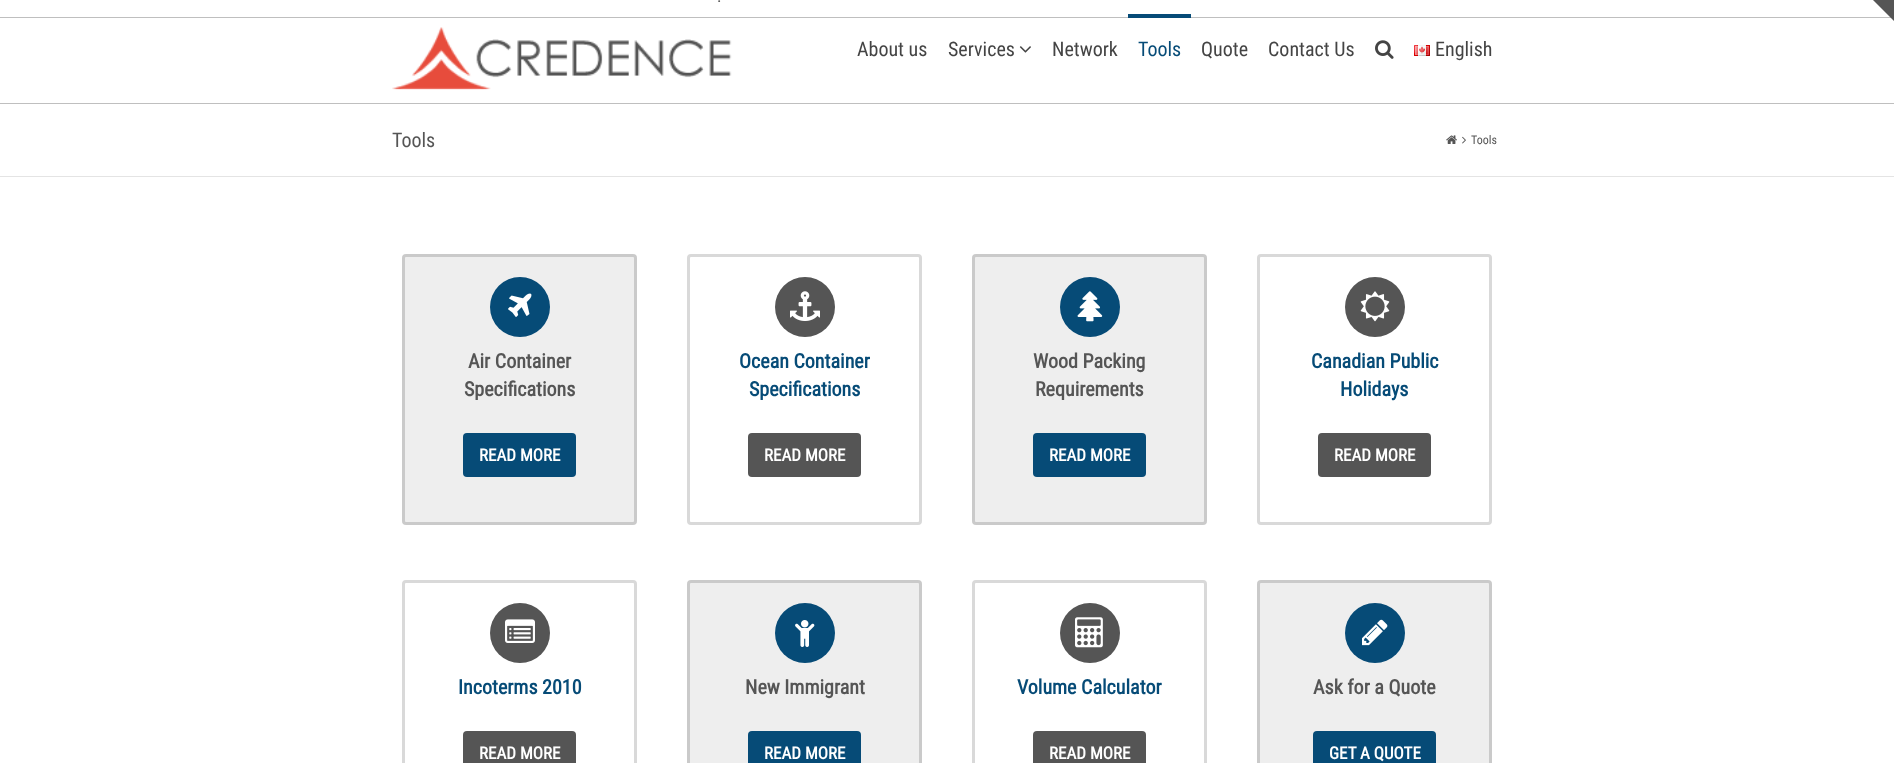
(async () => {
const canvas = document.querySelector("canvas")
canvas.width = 1894
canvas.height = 763
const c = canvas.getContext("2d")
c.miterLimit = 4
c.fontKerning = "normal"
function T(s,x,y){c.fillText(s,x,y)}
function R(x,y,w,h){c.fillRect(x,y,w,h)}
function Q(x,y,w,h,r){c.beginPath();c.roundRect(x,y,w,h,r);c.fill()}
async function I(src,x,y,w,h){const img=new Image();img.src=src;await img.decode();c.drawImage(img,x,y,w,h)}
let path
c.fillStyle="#fff"
R(0,0,1894,763)
c.font="17px Roboto Condensed"
c.fillStyle="#555"
T(".",717,2)
c.fillStyle="#bfbfbf"
R(0,17,1894,1)
c.fillStyle="#555"
path = new Path2D("M1894-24v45l-45-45z")
c.fill(path)
c.fillStyle="#bfbfbf"
R(0,103,1894,1)
await I("1.png",392,27,340,63)
c.font="20px Roboto Condensed"
c.fillStyle="#444"
T("About us",857,56)
T("Services",948,56)
await I("2.png",1019,46,12,7)
T("Network",1052,56)
c.fillStyle="#064b77"
R(1128,14,63,4)
T("Tools",1138,56)
c.fillStyle="#444"
T("Quote",1201,56)
T("Contact Us",1268,56)
await I("3.png",1375,40,19,19)
await I("4.png",1414,45,16,11)
T("English",1435,56)
c.fillStyle="#e4e4e4"
R(0,176,1894,1)
c.fillStyle="#555"
T("Tools",392,147)
await I("5.png",1446,135,11,9)
await I("6.png",1462,136,4,8)
c.font="12px Roboto Condensed"
T("Tools",1471,144)
c.fillStyle="#eee"
Q(402,254,235,271,4)
c.beginPath()
c.roundRect(403.5,255.5,232,268,2.5)
c.strokeStyle="#00000026"
c.lineWidth=3
c.stroke()
c.fillStyle="#064b77"
c.beginPath()
c.arc(520,307,30,0,7)
c.fill()
await I("7.png",508,293,24,24)
c.font="bold 20px Roboto Condensed"
c.fillStyle="#555"
T("Air Container",468,368)
T("Specifications",464,396)
c.fillStyle="#064b77"
Q(463,433,113,44,4)
c.font="bold 17px Roboto Condensed"
c.fillStyle="#fff"
T("READ MORE",479,461)
c.beginPath()
c.roundRect(688.5,255.5,232,268,2.5)
c.strokeStyle="#d9d9d9"
c.stroke()
c.fillStyle="#555"
c.beginPath()
c.arc(805,307,30,0,7)
c.fill()
await I("8.png",790,291,30,30)
c.font="bold 20px Roboto Condensed"
c.fillStyle="#064b77"
T("Ocean Container",739,368)
T("Specifications",749,396)
c.fillStyle="#555"
Q(748,433,113,44,4)
c.font="bold 17px Roboto Condensed"
c.fillStyle="#fff"
T("READ MORE",764,461)
c.fillStyle="#eee"
Q(972,254,235,271,4)
c.beginPath()
c.roundRect(973.5,255.5,232,268,2.5)
c.strokeStyle="#00000026"
c.stroke()
c.fillStyle="#064b77"
c.beginPath()
c.arc(1090,307,30,0,7)
c.fill()
await I("9.png",1077,291,26,31)
c.font="bold 20px Roboto Condensed"
c.fillStyle="#555"
T("Wood Packing",1033,368)
T("Requirements",1035,396)
c.fillStyle="#064b77"
Q(1033,433,113,44,4)
c.font="bold 17px Roboto Condensed"
c.fillStyle="#fff"
T("READ MORE",1049,461)
c.beginPath()
c.roundRect(1258.5,255.5,232,268,2.5)
c.strokeStyle="#d9d9d9"
c.stroke()
c.fillStyle="#555"
c.beginPath()
c.arc(1375,307,30,0,7)
c.fill()
await I("10.png",1360,291,30,31)
c.font="bold 20px Roboto Condensed"
c.fillStyle="#064b77"
T("Canadian Public",1311,368)
T("Holidays",1340,396)
c.fillStyle="#555"
Q(1318,433,113,44,4)
c.font="bold 17px Roboto Condensed"
c.fillStyle="#fff"
T("READ MORE",1334,461)
c.beginPath()
c.roundRect(403.5,581.5,232,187,2.5)
c.stroke()
c.fillStyle="#555"
c.beginPath()
c.arc(520,633,30,0,7)
c.fill()
await I("11.png",505,619,30,24)
c.font="bold 20px Roboto Condensed"
c.fillStyle="#064b77"
T("Incoterms 2010",458,694)
c.fillStyle="#555"
Q(463,731,113,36,4)
c.font="bold 17px Roboto Condensed"
c.fillStyle="#fff"
T("READ MORE",479,759)
c.fillStyle="#eee"
Q(687,580,235,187,4)
c.beginPath()
c.roundRect(688.5,581.5,232,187,2.5)
c.strokeStyle="#00000026"
c.stroke()
c.fillStyle="#064b77"
c.beginPath()
c.arc(805,633,30,0,7)
c.fill()
await I("12.png",795,620,20,27)
c.font="bold 20px Roboto Condensed"
c.fillStyle="#555"
T("New Immigrant",745,694)
c.fillStyle="#064b77"
Q(748,731,113,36,4)
c.font="bold 17px Roboto Condensed"
c.fillStyle="#fff"
T("READ MORE",764,759)
c.beginPath()
c.roundRect(973.5,581.5,232,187,2.5)
c.strokeStyle="#d9d9d9"
c.stroke()
c.fillStyle="#555"
c.beginPath()
c.arc(1090,633,30,0,7)
c.fill()
await I("13.png",1075,617,28,31)
c.font="bold 20px Roboto Condensed"
c.fillStyle="#064b77"
T("Volume Calculator",1017,694)
c.fillStyle="#555"
Q(1033,731,113,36,4)
c.font="bold 17px Roboto Condensed"
c.fillStyle="#fff"
T("READ MORE",1049,759)
c.fillStyle="#eee"
Q(1257,580,235,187,4)
c.beginPath()
c.roundRect(1258.5,581.5,232,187,2.5)
c.strokeStyle="#00000026"
c.stroke()
c.fillStyle="#064b77"
c.beginPath()
c.arc(1375,633,30,0,7)
c.fill()
await I("14.png",1362,619,26,27)
c.font="bold 20px Roboto Condensed"
c.fillStyle="#555"
T("Ask for a Quote",1313,694)
c.fillStyle="#064b77"
Q(1313,731,123,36,4)
c.font="bold 17px Roboto Condensed"
c.fillStyle="#fff"
T("GET A QUOTE",1329,759)
})()
